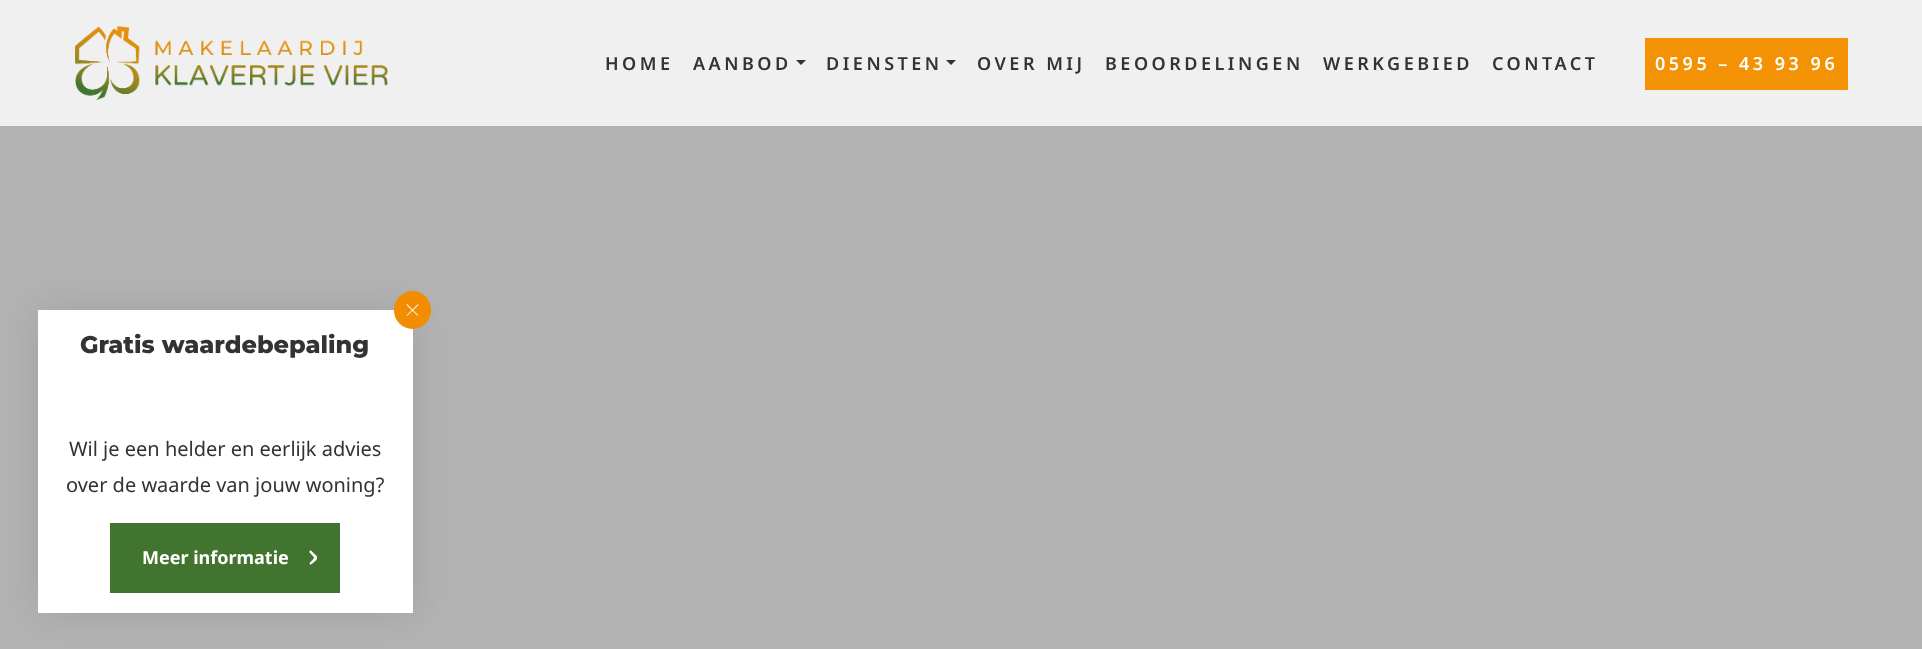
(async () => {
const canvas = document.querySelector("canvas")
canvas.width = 1922
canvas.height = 649
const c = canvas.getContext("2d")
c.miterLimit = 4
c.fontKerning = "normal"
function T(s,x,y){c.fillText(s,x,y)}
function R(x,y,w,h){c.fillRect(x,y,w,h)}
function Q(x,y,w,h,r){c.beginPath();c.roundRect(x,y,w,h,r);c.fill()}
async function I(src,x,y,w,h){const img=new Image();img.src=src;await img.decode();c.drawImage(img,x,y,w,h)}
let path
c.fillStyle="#b3b3b3"
R(0,0,1922,649)
c.fillStyle="#f0f0f0"
R(0,0,1922,126)
await I("1.png",75,26,313,75)
c.letterSpacing="3.5px"
c.font="600 18px Noto Sans"
c.fillStyle="#333"
T("HOME",605,70)
T("AANBOD",693,70)
path = new Path2D("M796 60h10l-5 5z")
c.fill(path)
T("DIENSTEN",826,70)
path = new Path2D("M946 60h10l-5 5z")
c.fill(path)
T("OVER MIJ",977,70)
T("BEOORDELINGEN",1105,70)
T("WERKGEBIED",1323,70)
T("CONTACT",1492,70)
c.fillStyle="#f39204"
R(1645,38,203,52)
c.fillStyle="#fff"
T("0595 – 43 93 96",1655,70)
c.fillStyle="#0000001a"
c.filter="blur(19px)"
c.beginPath()
c.rect(38,310,375,303)
c.fill()
c.filter="none"
c.fillStyle="#fff"
R(38,310,375,303)
c.fillStyle="#f28d01"
Q(394,291,37,38,18.5)
c.fillStyle="#fff"
path = new Path2D("M406.5 315.5l11.5-11.5l.5 1l-11.5 11z")
c.fill(path)
path = new Path2D("M407 304l11.5 11.5l-.5 .5l-11.5-11z")
c.fill(path)
c.letterSpacing="0px"
c.font="800 24px Montserrat"
c.fillStyle="#333"
T("Gratis waardebepaling",80,353)
c.font="20px Noto Sans"
T("Wil je een helder en eerlijk advies",69,456)
T("over de waarde van jouw woning?",66,492)
c.fillStyle="#41752f"
R(110,523,230,70)
c.font="bold 18px Noto Sans"
c.fillStyle="#fff"
T("Meer informatie",142,564)
path = new Path2D("M311.5 551l2.5 2.5c1 1 4 3 3 4.5c-1.5 2-4.5-2.5-5.5-3.5l-2-2c-.5-1.5 1-2.5 2-1.5z")
c.fill(path)
path = new Path2D("M310 562.5l2.5-2.5c1-1 2.5-4 4-3c2.5 1.5-2.5 5-3 5.5l-2.5 2c-1 .5-2-1-1-2z")
c.fill(path)
})()
